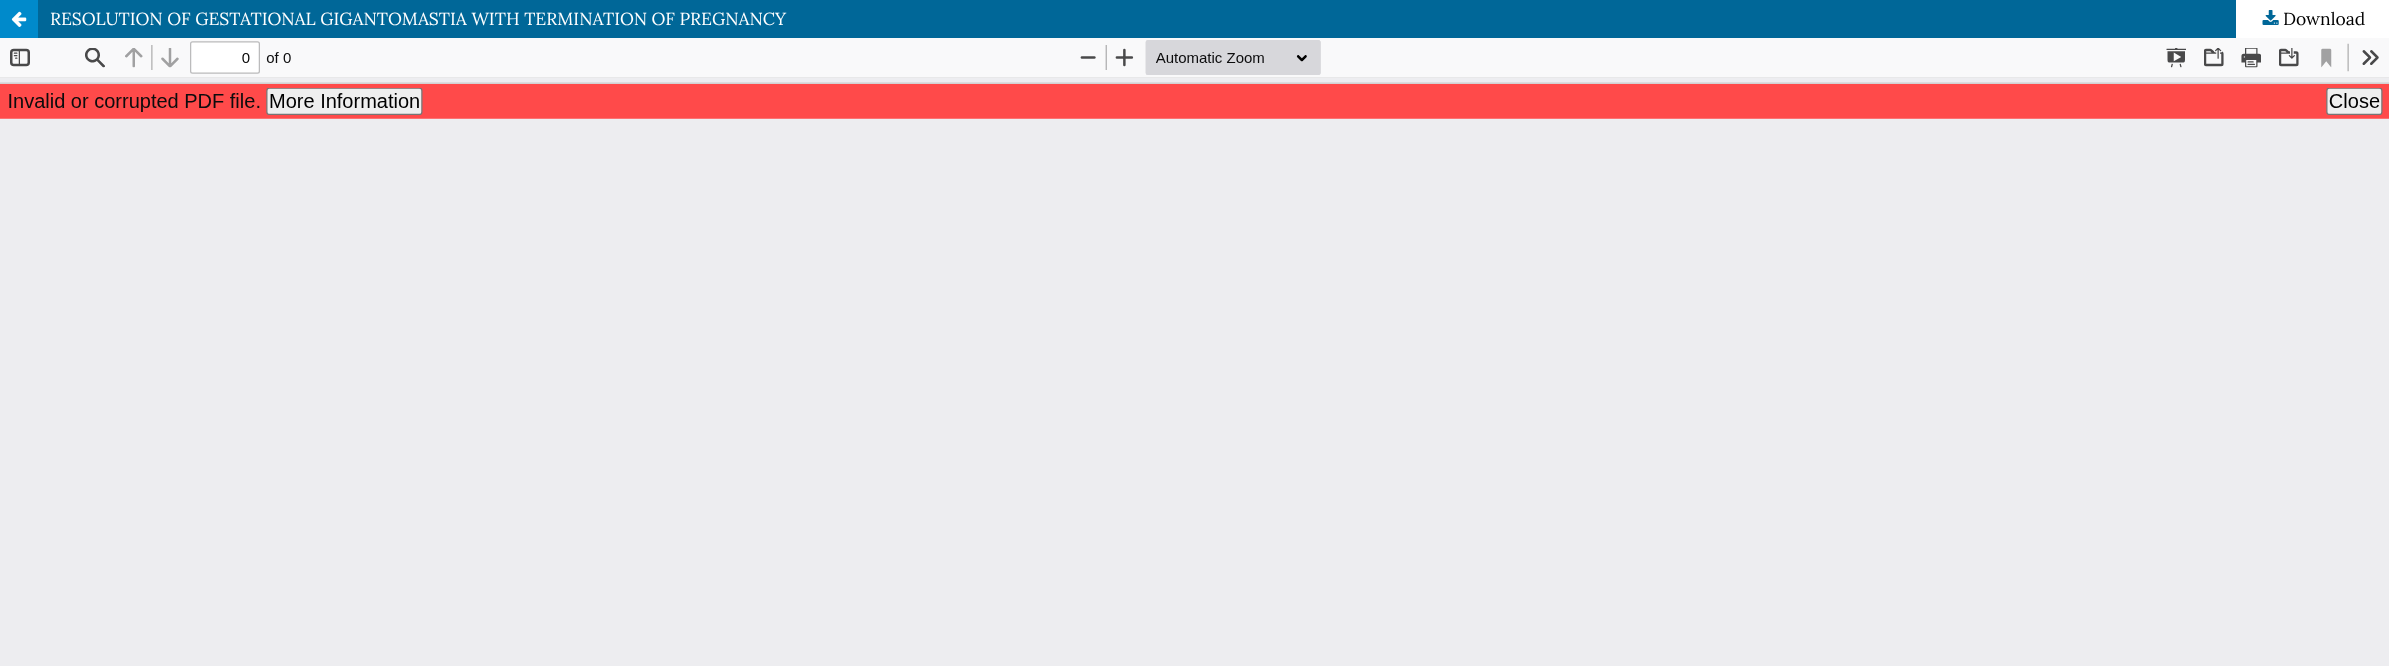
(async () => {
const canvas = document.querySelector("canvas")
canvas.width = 2389
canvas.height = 666
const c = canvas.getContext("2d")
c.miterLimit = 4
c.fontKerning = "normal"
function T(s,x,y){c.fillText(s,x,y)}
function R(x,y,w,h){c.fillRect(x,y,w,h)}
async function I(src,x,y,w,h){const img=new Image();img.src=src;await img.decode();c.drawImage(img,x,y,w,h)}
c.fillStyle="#fff"
R(0,0,2389,666)
c.fillStyle="#006798"
R(38,0,2198,38)
c.fillStyle="#008acb"
R(0,0,38,38)
await I("1.png",11,11,16,16)
c.font="17.5px Lora"
c.fillStyle="#fff"
T("RESOLUTION OF GESTATIONAL GIGANTOMASTIA WITH TERMINATION OF PREGNANCY",50,25)
await I("2.png",2262,10,17,15)
c.fillStyle="#000"
T("Download",2283,25)
await I("3.png",0,38,2389,628)
})()
